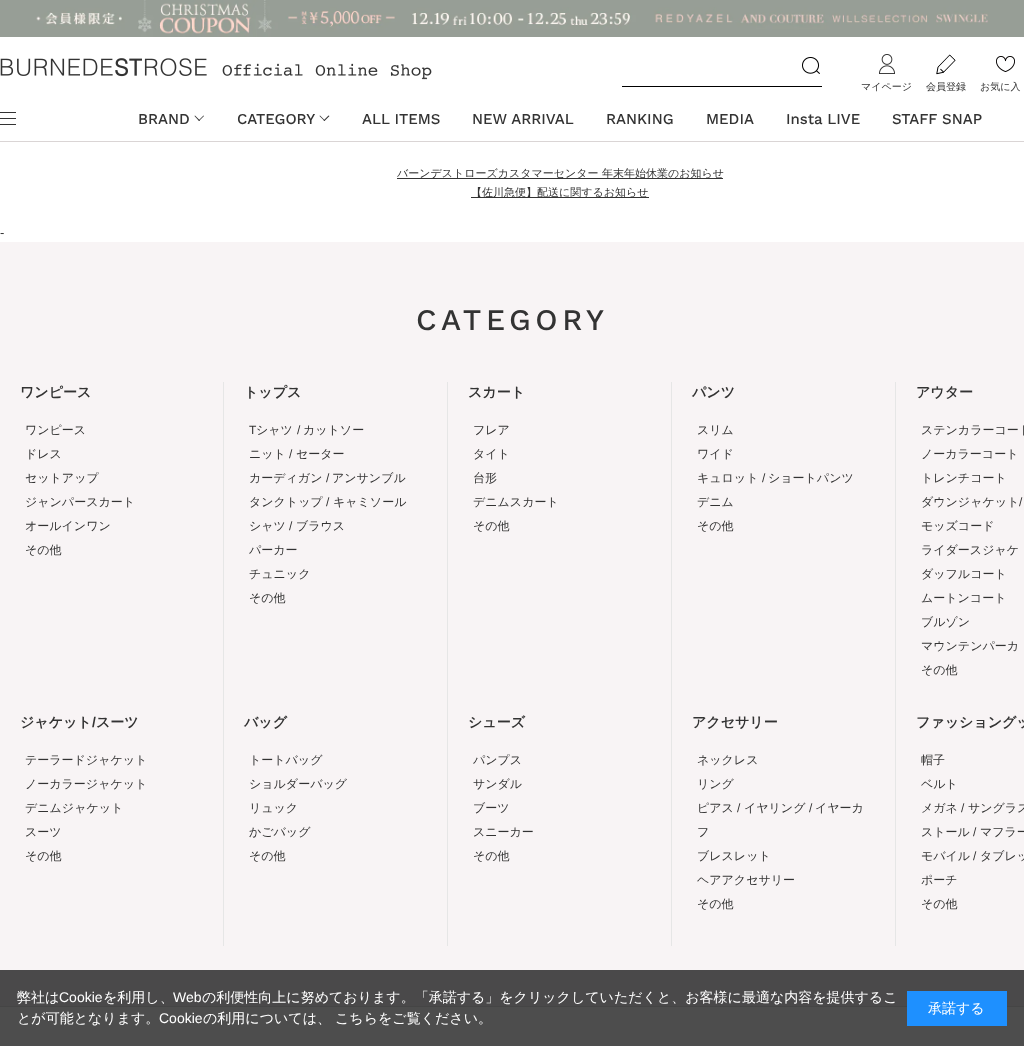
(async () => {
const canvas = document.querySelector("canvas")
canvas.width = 1024
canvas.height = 1046
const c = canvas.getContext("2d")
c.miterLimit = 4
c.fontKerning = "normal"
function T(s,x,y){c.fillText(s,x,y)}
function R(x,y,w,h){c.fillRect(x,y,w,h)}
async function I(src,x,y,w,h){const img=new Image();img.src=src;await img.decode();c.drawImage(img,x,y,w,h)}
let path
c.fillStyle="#fff"
R(0,0,1024,1046)
c.fillStyle="#4d4d4d"
R(0,1007,1024,39)
await I("1.png",0,0,1024,37)
c.fillStyle="#dad5d5"
R(0,141,1024,1)
await I("2.png",0,58,432,22)
c.fillStyle="#000"
R(622,86,200,1)
await I("3.png",802,57,18,17)
await I("4.png",879,54,16,20)
c.font="500 10px WenQuanYi Zen Hei"
c.fillStyle="#333"
T("マイページ",861,90)
await I("5.png",936,54,20,21)
T("会員登録",926,90)
await I("6.png",996,56,19,16)
T("お気に入",980,90)
R(0,112,16,1)
R(0,118,16,1)
R(0,124,16,1)
c.font="500 15px Work Sans"
T("BRAND",138,124)
path = new Path2D("M203.5 115.5l.5 .5l-5 5l-.5-.5z")
c.fill(path)
path = new Path2D("M195 115.5l5 5l-1 .5l-4.5-5z")
c.fill(path)
T("CATEGORY",237,124)
path = new Path2D("M328.5 115.5l1 .5l-5 5l-1-.5z")
c.fill(path)
path = new Path2D("M320 115.5l5 5l-.5 .5l-5-5z")
c.fill(path)
T("ALL ITEMS",362,124)
T("NEW ARRIVAL",472,124)
T("RANKING",606,124)
T("MEDIA",706,124)
T("Insta LIVE",786,124)
T("STAFF SNAP",892,124)
R(397,178,326,1)
c.font="500 11px WenQuanYi Zen Hei"
T("バーンデストローズカスタマーセンター 年末年始休業のお知らせ",397,177)
R(471,197,178,1)
T("【佐川急便】配送に関するお知らせ",471,196)
c.font="13px Liberation Sans"
T("-",0,237)
c.fillStyle="#f8f4f5"
R(0,242,1024,728)
c.fillStyle="#4a494a"
R(0,970,1024,36)
c.fillStyle="#454545"
R(0,1006,1024,1)
c.letterSpacing="4.5px"
c.font="500 30px Work Sans"
c.fillStyle="#333"
T("CATEGORY",416,330)
c.fillStyle="#e6e6e6"
R(223,382,1,564)
c.letterSpacing="0px"
c.font="bold 14px WenQuanYi Zen Hei"
c.fillStyle="#333"
T("ワンピース",20,397)
c.font="500 12px WenQuanYi Zen Hei"
T("ワンピース",25,434)
T("ドレス",25,458)
T("セットアップ",25,482)
T("ジャンパースカート",25,506)
T("オールインワン",25,530)
T("その他",25,554)
c.fillStyle="#e6e6e6"
R(447,382,1,564)
c.font="bold 14px WenQuanYi Zen Hei"
c.fillStyle="#333"
T("トップス",244,397)
c.font="12px Liberation Sans"
T("T",249,434)
c.font="500 12px WenQuanYi Zen Hei"
T("シャツ",256,434)
c.font="12px Liberation Sans"
T("/",297,434)
c.font="500 12px WenQuanYi Zen Hei"
T("カットソー",303,434)
T("ニット",249,458)
c.font="12px Liberation Sans"
T("/",289,458)
c.font="500 12px WenQuanYi Zen Hei"
T("セーター",296,458)
T("カーディガン",249,482)
c.font="12px Liberation Sans"
T("/",326,482)
c.font="500 12px WenQuanYi Zen Hei"
T("アンサンブル",332,482)
T("タンクトップ",249,506)
c.font="12px Liberation Sans"
T("/",326,506)
c.font="500 12px WenQuanYi Zen Hei"
T("キャミソール",333,506)
T("シャツ",249,530)
c.font="12px Liberation Sans"
T("/",289,530)
c.font="500 12px WenQuanYi Zen Hei"
T("ブラウス",296,530)
T("パーカー",249,554)
T("チュニック",249,578)
T("その他",249,602)
c.fillStyle="#e6e6e6"
R(671,382,1,564)
c.font="bold 14px WenQuanYi Zen Hei"
c.fillStyle="#333"
T("スカート",468,397)
c.font="500 12px WenQuanYi Zen Hei"
T("フレア",473,434)
T("タイト",473,458)
T("台形",473,482)
T("デニムスカート",473,506)
T("その他",473,530)
c.fillStyle="#e6e6e6"
R(895,382,1,564)
c.font="bold 14px WenQuanYi Zen Hei"
c.fillStyle="#333"
T("パンツ",692,397)
c.font="500 12px WenQuanYi Zen Hei"
T("スリム",697,434)
T("ワイド",697,458)
T("キュロット",697,482)
c.font="12px Liberation Sans"
T("/",762,482)
c.font="500 12px WenQuanYi Zen Hei"
T("ショートパンツ",768,482)
T("デニム",697,506)
T("その他",697,530)
c.font="bold 14px WenQuanYi Zen Hei"
T("アウター",916,397)
c.font="500 12px WenQuanYi Zen Hei"
T("ステンカラーコート",921,434)
T("ノーカラーコート",921,458)
T("トレンチコート",921,482)
T("ダウンジャケット",921,506)
c.font="12px Liberation Sans"
T("/",1019,506)
c.font="500 12px WenQuanYi Zen Hei"
T("モッズコード",921,530)
T("ライダースジャケ",921,554)
T("ダッフルコート",921,578)
T("ムートンコート",921,602)
T("ブルゾン",921,626)
T("マウンテンパーカ",921,650)
T("その他",921,674)
c.font="bold 14px WenQuanYi Zen Hei"
T("ジャケット",20,727)
c.font="bold 14px Liberation Sans"
T("/",92,727)
c.font="bold 14px WenQuanYi Zen Hei"
T("スーツ",96,727)
c.font="500 12px WenQuanYi Zen Hei"
T("テーラードジャケット",25,764)
T("ノーカラージャケット",25,788)
T("デニムジャケット",25,812)
T("スーツ",25,836)
T("その他",25,860)
c.font="bold 14px WenQuanYi Zen Hei"
T("バッグ",244,727)
c.font="500 12px WenQuanYi Zen Hei"
T("トートバッグ",249,764)
T("ショルダーバッグ",249,788)
T("リュック",249,812)
T("かごバッグ",249,836)
T("その他",249,860)
c.font="bold 14px WenQuanYi Zen Hei"
T("シューズ",468,727)
c.font="500 12px WenQuanYi Zen Hei"
T("パンプス",473,764)
T("サンダル",473,788)
T("ブーツ",473,812)
T("スニーカー",473,836)
T("その他",473,860)
c.font="bold 14px WenQuanYi Zen Hei"
T("アクセサリー",692,727)
c.font="500 12px WenQuanYi Zen Hei"
T("ネックレス",697,764)
T("リング",697,788)
T("ピアス",697,812)
c.font="12px Liberation Sans"
T("/",737,812)
c.font="500 12px WenQuanYi Zen Hei"
T("イヤリング",744,812)
c.font="12px Liberation Sans"
T("/",809,812)
c.font="500 12px WenQuanYi Zen Hei"
T("イヤーカ",815,812)
T("フ",697,836)
T("ブレスレット",697,860)
T("ヘアアクセサリー",697,884)
T("その他",697,908)
c.font="bold 14px WenQuanYi Zen Hei"
T("ファッショングッ",916,727)
c.font="500 12px WenQuanYi Zen Hei"
T("帽子",921,764)
T("ベルト",921,788)
T("メガネ",921,812)
c.font="12px Liberation Sans"
T("/",961,812)
c.font="500 12px WenQuanYi Zen Hei"
T("サングラス",968,812)
T("ストール",921,836)
c.font="12px Liberation Sans"
T("/",973,836)
c.font="500 12px WenQuanYi Zen Hei"
T("マフラー",980,836)
T("モバイル",921,860)
c.font="12px Liberation Sans"
T("/",973,860)
c.font="500 12px WenQuanYi Zen Hei"
T("タブレッ",980,860)
T("ポーチ",921,884)
T("その他",921,908)
c.font="500 14px WenQuanYi Zen Hei"
c.fillStyle="#fff"
T("弊社は",17,1002)
c.font="14px Liberation Sans"
T("Cookie",59,1002)
c.font="500 14px WenQuanYi Zen Hei"
T("を利用し、",103,1002)
c.font="14px Liberation Sans"
T("Web",173,1002)
c.font="500 14px WenQuanYi Zen Hei"
T("の利便性向上に努めております。「承諾する」をクリックしていただくと、お客様に最適な内容を提供するこ",202,1002)
T("とが可能となります。",17,1023)
c.font="14px Liberation Sans"
T("Cookie",159,1023)
c.font="500 14px WenQuanYi Zen Hei"
T("の利用については、",203,1023)
T("こちらをご覧ください。",335,1023)
c.fillStyle="#1e90ff"
R(907,991,100,35)
c.fillStyle="#fff"
T("承諾する",928,1013)
})()
